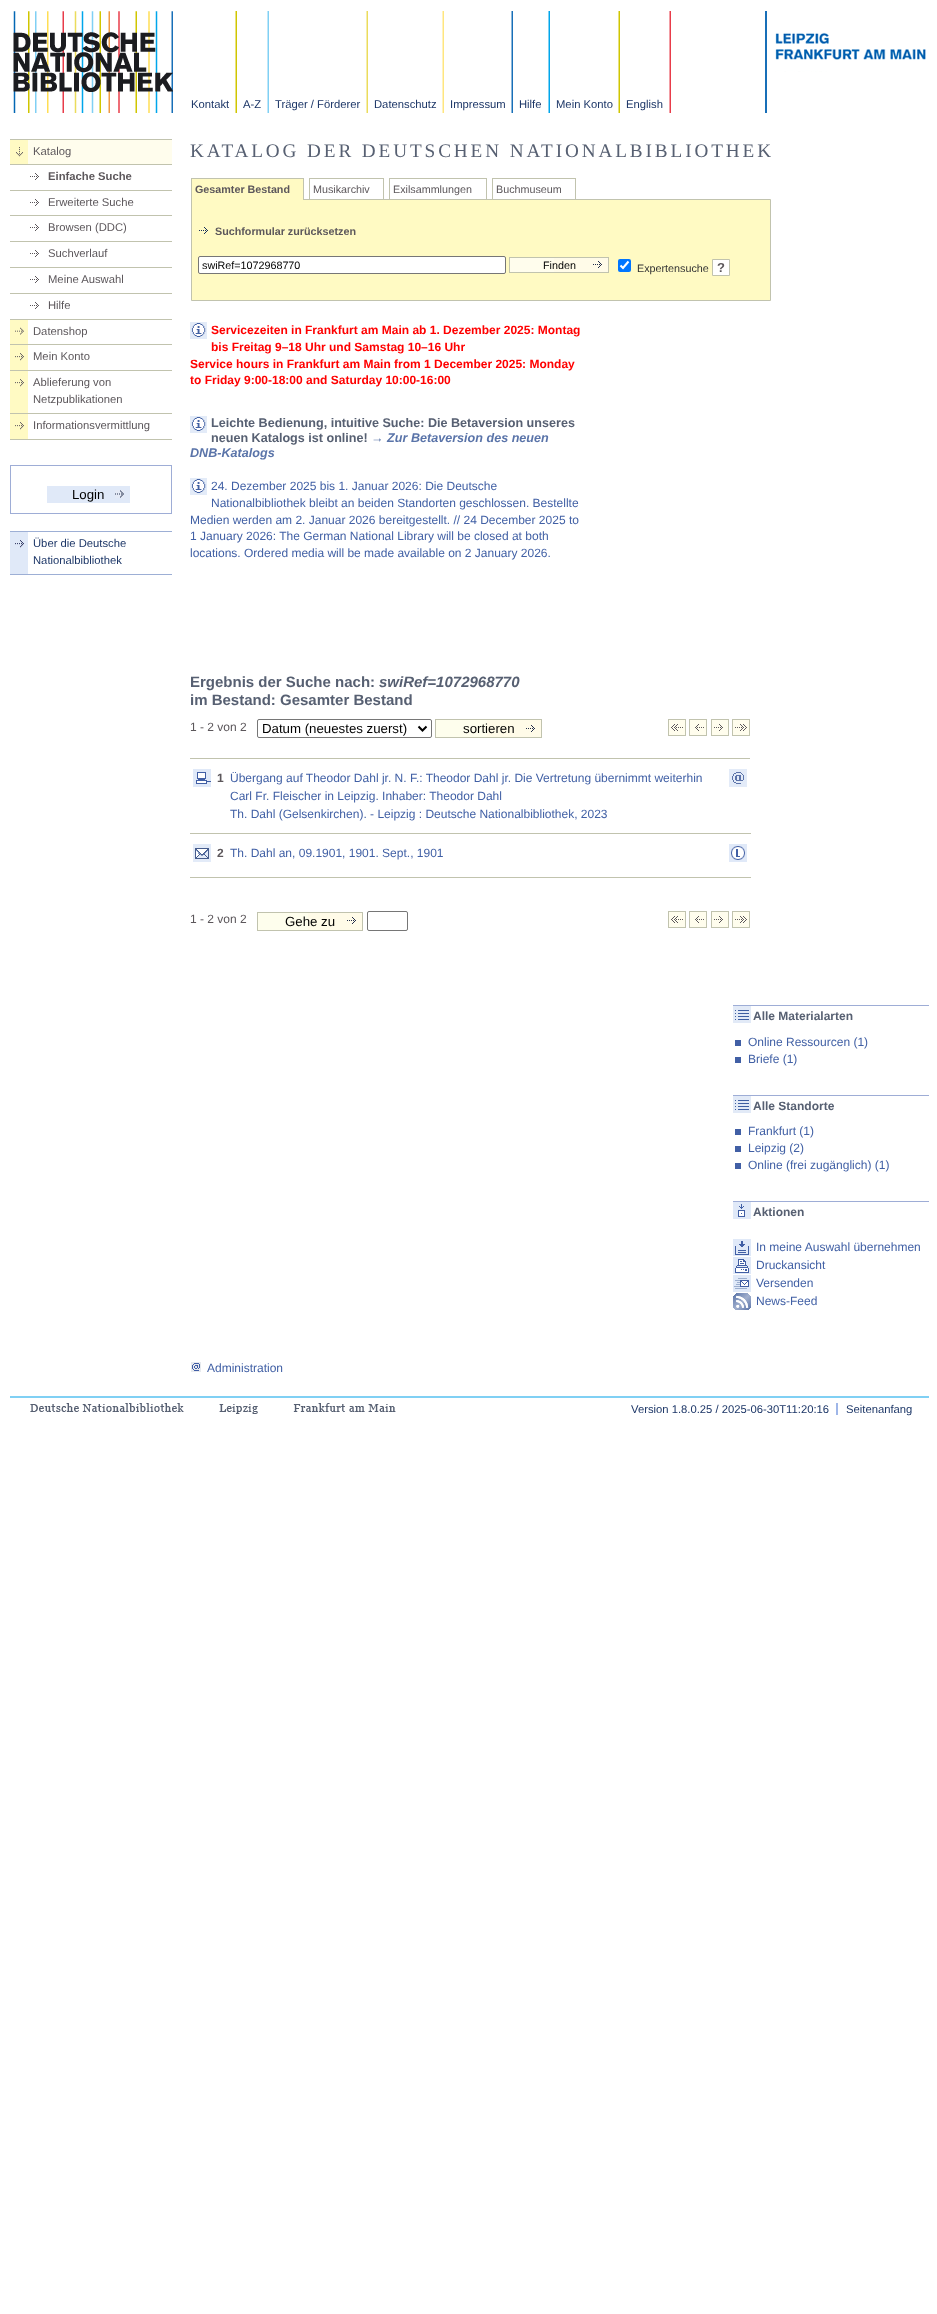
(async () => {
const canvas = document.querySelector("canvas")
canvas.width = 937
canvas.height = 2314
const c = canvas.getContext("2d")
c.miterLimit = 4
c.fontKerning = "normal"
function T(s,x,y){c.fillText(s,x,y)}
function R(x,y,w,h){c.fillRect(x,y,w,h)}
function Q(x,y,w,h,r){c.beginPath();c.roundRect(x,y,w,h,r);c.fill()}
async function I(src,x,y,w,h){const img=new Image();img.src=src;await img.decode();c.drawImage(img,x,y,w,h)}
let path
c.fillStyle="#fff"
R(0,0,937,2314)
await I("1.png",13,11,160,102)
await I("2.png",235,11,2,102)
c.font="11.25px Liberation Sans"
c.fillStyle="#1c3667"
T("Kontakt",191,108)
await I("3.png",267,11,2,102)
T("A-Z",243,108)
await I("4.png",366,11,2,102)
T("Träger / Förderer",275,108)
await I("5.png",442,11,2,102)
T("Datenschutz",374,108)
await I("6.png",511,11,2,102)
T("Impressum",450,108)
await I("7.png",548,11,2,102)
T("Hilfe",519,108)
await I("2.png",618,11,2,102)
T("Mein Konto",556,108)
await I("8.png",669,11,2,102)
T("English",626,108)
await I("9.png",765,11,161,102)
c.fillStyle="#c1c3ae"
R(10,439,162,1)
c.fillStyle="#fffded"
R(28,140,144,24)
await I("10.png",10,140,18,24)
c.fillStyle="#c1c3ae"
R(10,139,162,1)
await I("11.png",16,144,7,13)
c.fillStyle="#5c575b"
T("Katalog",33,155)
c.fillStyle="#c1c3ae"
R(10,164,162,1)
await I("12.png",30,173,9,7)
c.font="bold 11.25px Liberation Sans"
c.fillStyle="#5c575b"
T("Einfache Suche",48,180)
c.fillStyle="#c1c3ae"
R(10,190,162,1)
await I("12.png",30,199,9,7)
c.font="11.25px Liberation Sans"
c.fillStyle="#5c575b"
T("Erweiterte Suche",48,206)
c.fillStyle="#c1c3ae"
R(10,215,162,1)
await I("12.png",30,224,9,7)
c.fillStyle="#5c575b"
T("Browsen (DDC)",48,231)
c.fillStyle="#c1c3ae"
R(10,241,162,1)
await I("12.png",30,250,9,7)
c.fillStyle="#5c575b"
T("Suchverlauf",48,257)
c.fillStyle="#c1c3ae"
R(10,267,162,1)
await I("12.png",30,276,9,7)
c.fillStyle="#5c575b"
T("Meine Auswahl",48,283)
c.fillStyle="#c1c3ae"
R(10,293,162,1)
await I("12.png",30,302,9,7)
c.fillStyle="#5c575b"
T("Hilfe",48,309)
await I("13.png",10,320,18,24)
c.fillStyle="#c1c3ae"
R(10,319,162,1)
await I("14.png",15,324,9,11)
c.fillStyle="#5c575b"
T("Datenshop",33,335)
await I("15.png",10,345,18,25)
c.fillStyle="#c1c3ae"
R(10,344,162,1)
await I("16.png",15,350,9,11)
c.fillStyle="#5c575b"
T("Mein Konto",33,360)
await I("17.png",10,371,18,42)
c.fillStyle="#c1c3ae"
R(10,370,162,1)
await I("16.png",15,376,9,11)
c.fillStyle="#5c575b"
T("Ablieferung von",33,386)
T("Netzpublikationen",33,403)
await I("15.png",10,414,18,25)
c.fillStyle="#c1c3ae"
R(10,413,162,1)
await I("16.png",15,419,9,11)
c.fillStyle="#5c575b"
T("Informationsvermittlung",33,429)
c.strokeStyle="#9eadd6"
c.strokeRect(10.5,465.5,161,48)
c.fillStyle="#e0e9f8"
R(47,486,83,17)
await I("18.png",115,490,9,8)
c.font="13.25px Liberation Sans"
c.fillStyle="#000"
T("Login",72,499)
c.fillStyle="#9dafd5"
R(10,574,162,1)
await I("19.png",10,532,18,42)
R(10,531,162,1)
await I("20.png",15,537,9,11)
c.font="11.25px Liberation Sans"
c.fillStyle="#1c3667"
T("Über die Deutsche",33,547)
T("Nationalbibliothek",33,564)
c.letterSpacing="2.9px"
c.font="19.2px Liberation Serif"
c.fillStyle="#576072"
T("KATALOG DER DEUTSCHEN NATIONALBIBLIOTHEK",190,157)
c.strokeStyle="#c1c3ae"
c.strokeRect(309.5,178.5,74,30)
c.strokeRect(389.5,178.5,97,30)
c.strokeRect(492.5,178.5,83,30)
c.fillStyle="#fffac3"
c.beginPath()
c.rect(191.5,199.5,579,101)
c.fill()
c.stroke()
R(192,179,111,21)
c.fillStyle="#c1c3ae"
R(191,178,113,1)
R(303,178,1,22)
R(191,178,1,22)
c.letterSpacing="0px"
c.font="bold 10.75px Liberation Sans"
c.fillStyle="#5c575b"
T("Gesamter Bestand",195,193)
c.font="10.75px Liberation Sans"
T("Musikarchiv",313,193)
T("Exilsammlungen",393,193)
T("Buchmuseum",496,193)
await I("21.png",199,227,9,7)
c.font="bold 10.75px Liberation Sans"
T("Suchformular zurücksetzen",215,235)
c.fillStyle="#fff"
c.beginPath()
c.roundRect(198.5,256.5,307,17,1.5)
c.fill()
c.strokeStyle="#767676"
c.stroke()
c.font="10.75px Liberation Sans"
c.fillStyle="#000"
T("swiRef=1072968770",202,269)
c.fillStyle="#fffded"
R(510,258,44,14)
await I("22.png",554,258,54,14)
c.strokeStyle="#c1c3ae"
c.strokeRect(509.5,257.5,99,15)
c.fillStyle="#000"
T("Finden",543,269)
c.fillStyle="#0075ff"
Q(618,259,13,13,2)
path = new Path2D("M620.5 265.5l2.5 2.5l5.5-6.5")
c.strokeStyle="#fff"
c.lineWidth=2.1
c.stroke(path)
c.fillStyle="#333"
T("Expertensuche",637,272)
c.fillStyle="#fff"
c.beginPath()
c.rect(712.5,259.5,17,16)
c.fill()
c.strokeStyle="#c1c3ae"
c.lineWidth=1
c.stroke()
c.font="bold 13px Liberation Sans"
c.fillStyle="#5c575b"
T("?",717,272)
await I("23.png",190,322,17,17)
c.font="bold 12px Liberation Sans"
c.fillStyle="#f00"
T("Servicezeiten in Frankfurt am Main ab 1. Dezember 2025: Montag",211,334)
T("bis Freitag 9–18 Uhr und Samstag 10–16 Uhr",211,351)
T("Service hours in Frankfurt am Main from 1 December 2025: Monday",190,368)
T("to Friday 9:00-18:00 and Saturday 10:00-16:00",190,384)
await I("23.png",190,416,17,17)
c.font="bold 12.6px Liberation Sans"
c.fillStyle="#576072"
T("Leichte Bedienung, intuitive Suche: Die Betaversion unseres",211,427)
T("neuen Katalogs ist online!",211,442)
c.font="italic bold 12.6px Liberation Sans"
c.fillStyle="#5a74a9"
T("→ Zur Betaversion des neuen",371,442)
T("DNB-Katalogs",190,457)
await I("23.png",190,478,17,17)
c.font="12px Liberation Sans"
c.fillStyle="#4160a5"
T("24. Dezember 2025 bis 1. Januar 2026: Die Deutsche",211,490)
T("Nationalbibliothek bleibt an beiden Standorten geschlossen. Bestellte",211,507)
T("Medien werden am 2. Januar 2026 bereitgestellt. // 24 December 2025 to",190,524)
T("1 January 2026: The German National Library will be closed at both",190,540)
T("locations. Ordered media will be made available on 2 January 2026.",190,557)
c.font="bold 15px Liberation Sans"
c.fillStyle="#576072"
T("Ergebnis der Suche nach:",190,687)
c.font="italic bold 15px Liberation Sans"
T("swiRef=1072968770",379,687)
c.font="bold 15px Liberation Sans"
T("im Bestand: Gesamter Bestand",190,705)
c.font="12px Liberation Sans"
c.fillStyle="#5c575b"
T("1 - 2 von 2",190,731)
c.beginPath()
c.roundRect(257.5,719.5,174,18,1.5)
c.strokeStyle="#767676"
c.stroke()
path = new Path2D("M418.5 726.5l4 4l4-4")
c.strokeStyle="#000"
c.lineWidth=2
c.stroke(path)
c.font="13.25px Liberation Sans"
c.fillStyle="#000"
T("Datum (neuestes zuerst)",262,733)
c.fillStyle="#fefeed"
R(436,720,51,17)
await I("24.png",487,720,54,17)
c.strokeStyle="#c1c3ae"
c.lineWidth=1
c.strokeRect(435.5,719.5,106,18)
c.fillStyle="#000"
T("sortieren",463,733)
await I("25.png",668,719,18,17)
await I("26.png",689,719,18,17)
await I("27.png",711,719,18,17)
await I("28.png",732,719,18,17)
c.fillStyle="#c1c3ae"
R(190,758,560,1)
R(190,833,561,1)
await I("29.png",193,769,18,18)
c.font="bold 12px Liberation Sans"
c.fillStyle="#5c575b"
T("1",217,782)
c.font="12px Liberation Sans"
c.fillStyle="#4160a5"
T("Übergang auf Theodor Dahl jr. N. F.: Theodor Dahl jr. Die Vertretung übernimmt weiterhin",230,782)
T("Carl Fr. Fleischer in Leipzig. Inhaber: Theodor Dahl",230,800)
T("Th. Dahl (Gelsenkirchen). - Leipzig : Deutsche Nationalbibliothek, 2023",230,818)
await I("30.png",729,769,18,18)
c.fillStyle="#c1c3ae"
R(190,877,561,1)
await I("31.png",193,844,18,18)
c.font="bold 12px Liberation Sans"
c.fillStyle="#5c575b"
T("2",217,857)
c.font="12px Liberation Sans"
c.fillStyle="#4160a5"
T("Th. Dahl an, 09.1901, 1901. Sept., 1901",230,857)
await I("32.png",729,844,18,18)
c.fillStyle="#5c575b"
T("1 - 2 von 2",190,923)
c.fillStyle="#fefeed"
R(258,913,50,17)
await I("33.png",308,913,54,17)
c.strokeRect(257.5,912.5,105,18)
c.font="13.25px Liberation Sans"
c.fillStyle="#000"
T("Gehe zu",285,926)
c.beginPath()
c.roundRect(367.5,911.5,40,19,1.5)
c.strokeStyle="#767676"
c.stroke()
await I("25.png",668,911,18,17)
await I("26.png",689,911,18,17)
await I("27.png",711,911,18,17)
await I("28.png",732,911,18,17)
c.fillStyle="#9eadd6"
R(733,1005,196,1)
await I("34.png",733,1006,18,17)
c.font="bold 12px Liberation Sans"
c.fillStyle="#576072"
T("Alle Materialarten",753,1020)
c.fillStyle="#415fa5"
R(735,1040,6,6)
c.font="12px Liberation Sans"
c.fillStyle="#4160a5"
T("Online Ressourcen (1)",748,1046)
c.fillStyle="#415fa5"
R(735,1057,6,6)
c.fillStyle="#4160a5"
T("Briefe (1)",748,1063)
c.fillStyle="#9eadd6"
R(733,1095,196,1)
await I("34.png",733,1096,18,17)
c.font="bold 12px Liberation Sans"
c.fillStyle="#576072"
T("Alle Standorte",753,1110)
c.fillStyle="#415fa5"
R(735,1129,6,6)
c.font="12px Liberation Sans"
c.fillStyle="#4160a5"
T("Frankfurt (1)",748,1135)
c.fillStyle="#415fa5"
R(735,1146,6,6)
c.fillStyle="#4160a5"
T("Leipzig (2)",748,1152)
c.fillStyle="#415fa5"
R(735,1163,6,6)
c.fillStyle="#4160a5"
T("Online (frei zugänglich) (1)",748,1169)
c.fillStyle="#9eadd6"
R(733,1201,196,1)
await I("35.png",733,1202,18,17)
c.font="bold 12px Liberation Sans"
c.fillStyle="#576072"
T("Aktionen",753,1216)
await I("36.png",733,1239,18,17)
c.font="12px Liberation Sans"
c.fillStyle="#4160a5"
T("In meine Auswahl übernehmen",756,1251)
await I("37.png",733,1257,18,17)
T("Druckansicht",756,1269)
await I("38.png",733,1275,18,17)
T("Versenden",756,1287)
await I("39.png",733,1293,18,17)
T("News-Feed",756,1305)
await I("40.png",191,1362,10,10)
T("Administration",207,1372)
c.fillStyle="#80d0f4"
R(10,1396,919,2)
await I("41.png",30,1403,366,11)
c.font="11.25px Liberation Sans"
c.fillStyle="#1c3667"
T("Version 1.8.0.25 / 2025-06-30T11:20:16",631,1413)
T("Seitenanfang",846,1413)
c.fillStyle="#9fb6e8"
R(836,1403,2,12)
})()
